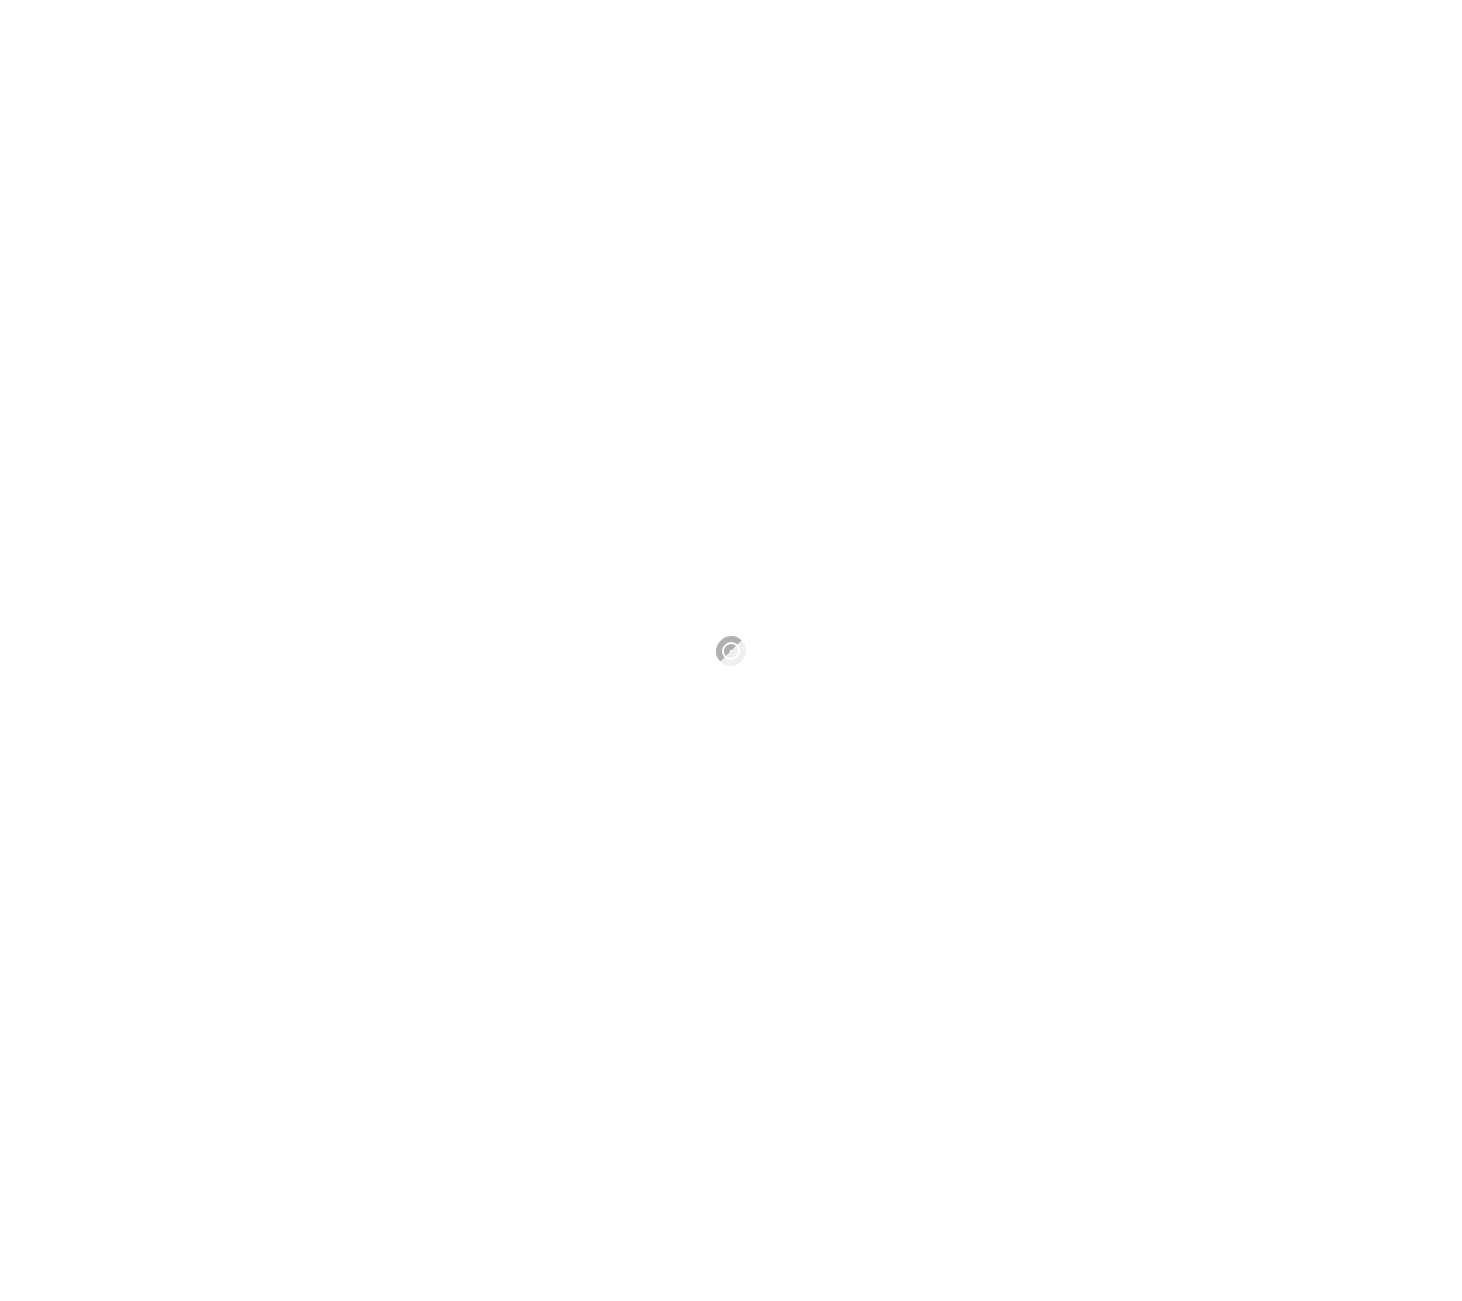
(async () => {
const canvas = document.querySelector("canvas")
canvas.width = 1462
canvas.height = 1301
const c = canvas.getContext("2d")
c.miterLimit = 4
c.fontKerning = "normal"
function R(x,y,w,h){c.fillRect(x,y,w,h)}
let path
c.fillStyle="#fff"
R(0,0,1462,1301)
path = new Path2D("M734 648c3.5 4-2 9.5-6 6")
c.strokeStyle="#efefef"
c.lineWidth=6
c.stroke(path)
path = new Path2D("M728 654c-3.5-4 2-9.5 6-6")
c.strokeStyle="#b0b0af"
c.stroke(path)
path = new Path2D("M739.5 642.5c11 11-6 28-17 17")
c.strokeStyle="#efefef"
c.stroke(path)
path = new Path2D("M722.5 659.5c-11-11 6-28 17-17")
c.strokeStyle="#b0b0af"
c.stroke(path)
})()
